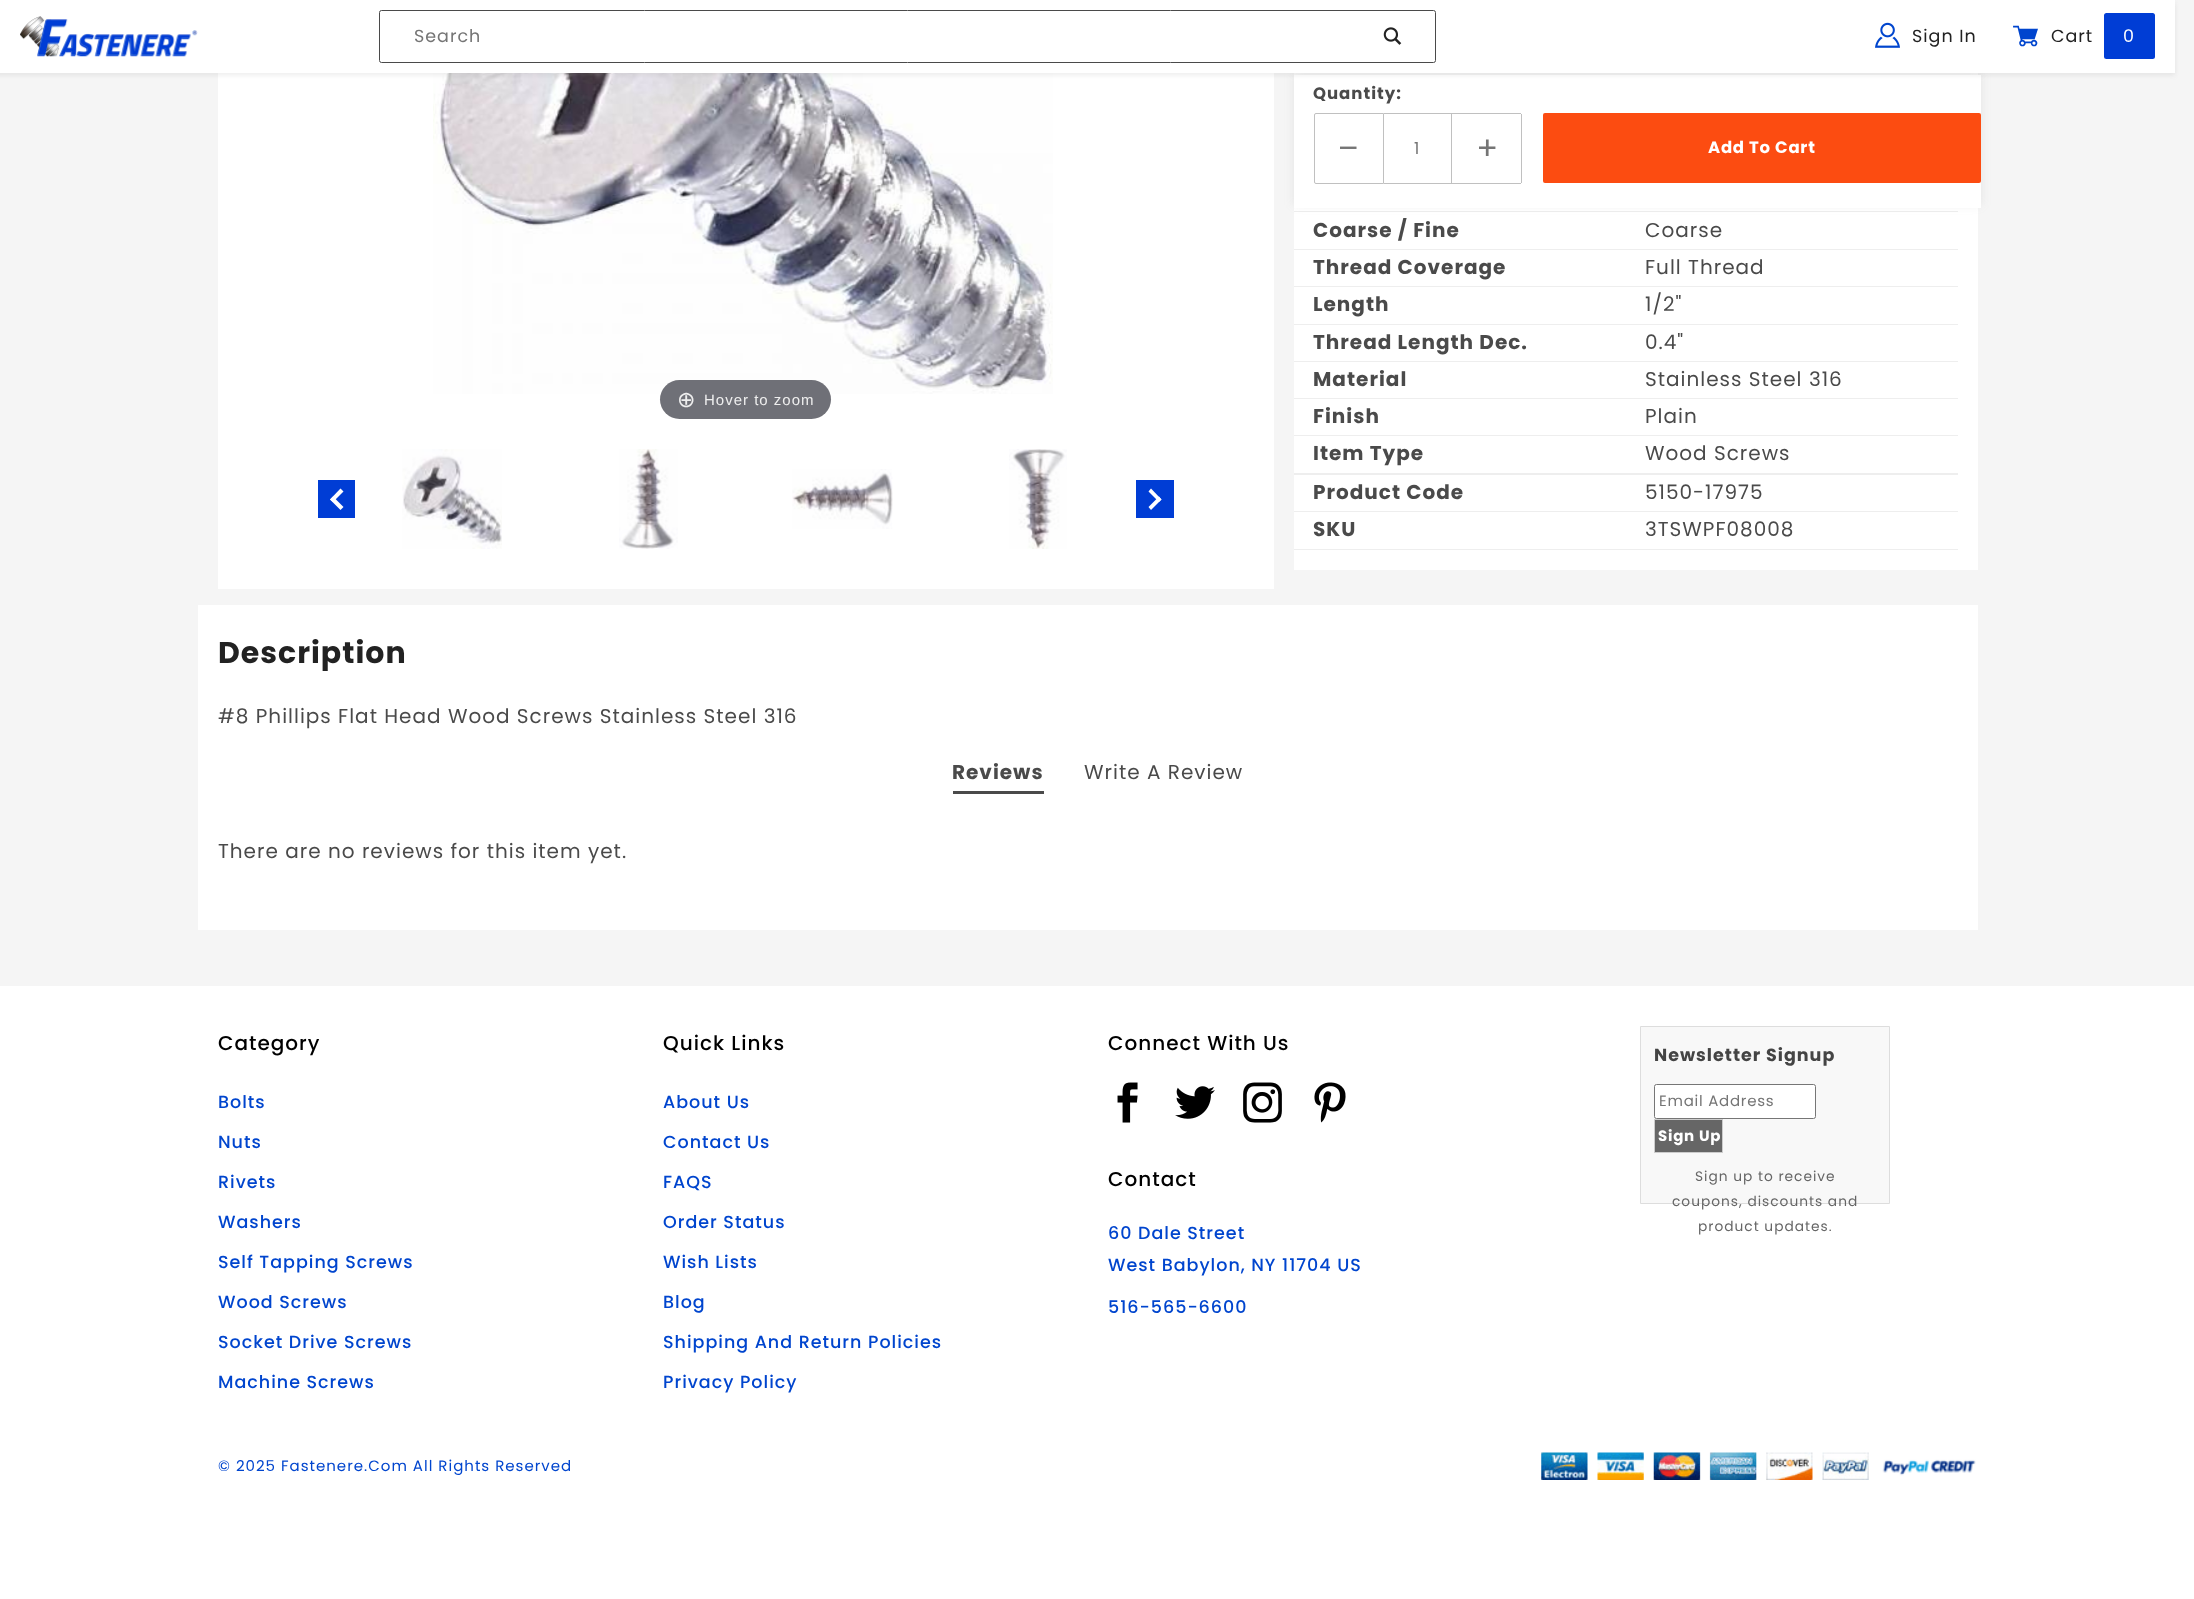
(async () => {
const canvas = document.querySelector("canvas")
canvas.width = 2194
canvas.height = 1599
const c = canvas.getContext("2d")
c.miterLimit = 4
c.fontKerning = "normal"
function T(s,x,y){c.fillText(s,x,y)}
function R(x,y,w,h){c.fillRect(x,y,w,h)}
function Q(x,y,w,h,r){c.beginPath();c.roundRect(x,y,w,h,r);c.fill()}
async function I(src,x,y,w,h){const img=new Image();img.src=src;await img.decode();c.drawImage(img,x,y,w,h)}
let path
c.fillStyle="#f5f5f5"
R(0,0,2194,1599)
c.fillStyle="#fff"
R(218,73,1056,516)
await I("4.png",433,73,620,321)
R(1294,73,684,497)
c.fillStyle="#eee"
R(1294,211,664,1)
c.fillStyle="#80808026"
c.filter="blur(5px)"
c.beginPath()
c.rect(1294,73,687,132)
c.fill()
c.filter="none"
c.fillStyle="#fff"
R(1294,75,687,133)
c.fillStyle="#80808026"
c.filter="blur(2.5px)"
c.beginPath()
c.rect(-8,3,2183,72)
c.fill()
c.filter="none"
c.fillStyle="#fff"
R(0,0,2175,73)
await I("1.png",20,16,178,41)
c.beginPath()
c.roundRect(379.5,10.5,1056,52,2)
c.strokeStyle="#4a4a4a"
c.stroke()
c.letterSpacing="1px"
c.font="17.5px Poppins"
c.fillStyle="#757575"
T("Search",414,42)
await I("2.png",1383,27,19,18)
await I("3.png",1875,22,25,26)
c.fillStyle="#222"
T("Sign In",1912,42)
c.font="25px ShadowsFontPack"
c.fillStyle="#0045ce"
T("[",2013,47)
c.font="17.5px Poppins"
c.fillStyle="#222"
T("Cart",2051,42)
c.fillStyle="#003dd5"
Q(2104,13,51,46,2.5)
c.fillStyle="#fff"
T("0",2123,42)
c.fillStyle="#6f7077"
Q(660,380,171,39,19.5)
c.font="22px DejaVu Sans"
c.fillStyle="#eee"
T("⊕",677,407)
c.font="15px Liberation Sans"
T("Hover to zoom",704,405)
c.fillStyle="#003dd5"
R(318,480,37,38)
c.fillStyle="#fff"
path = new Path2D("M330 499.5l10.5-11l3 3l-10.5 10.5z")
c.fill(path)
path = new Path2D("M330 499.5l3-3l10.5 10.5l-3 3z")
c.fill(path)
await I("5.png",402,449,100,100)
await I("6.png",619,449,59,100)
await I("7.png",792,469,101,60)
await I("8.png",1009,449,58,100)
c.fillStyle="#003dd5"
R(1136,480,38,38)
c.fillStyle="#fff"
path = new Path2D("M1161.5 499.5l-10.5 10.5l-2.5-3l10.5-10.5z")
c.fill(path)
path = new Path2D("M1161.5 499.5l-2.5 2.5l-10.5-10.5l2.5-3z")
c.fill(path)
c.font="bold 16.5px Poppins"
c.fillStyle="#4a4a4a"
T("Quantity:",1313,99)
c.beginPath()
c.roundRect(1314.5,113.5,69,70,[1.5,0,0,1.5])
c.strokeStyle="#c0c0c0"
c.stroke()
c.letterSpacing="0.75px"
c.font="16.5px ShadowsFontPack"
c.fillStyle="#757575"
T("<",1340,155)
c.fillStyle="#c0c0c0"
R(1384,113,137,1)
R(1451,113,1,71)
R(1384,183,137,1)
c.font="16.5px Poppins"
c.fillStyle="#757575"
T("1",1414,154)
c.fillStyle="#c0c0c0"
R(1521,114,1,69)
c.font="16.5px ShadowsFontPack"
c.fillStyle="#757575"
T("=",1479,155)
c.fillStyle="#fc4c11"
Q(1543,113,438,70,2)
c.font="bold 16.5px Poppins"
c.fillStyle="#fff"
T("Add To Cart",1708,153)
c.fillStyle="#eee"
R(1294,249,664,1)
c.letterSpacing="1px"
c.font="bold 20px Poppins"
c.fillStyle="#4a4a4a"
T("Coarse / Fine",1313,237)
c.font="20px Poppins"
T("Coarse",1645,237)
c.fillStyle="#eee"
R(1294,286,664,1)
c.font="bold 20px Poppins"
c.fillStyle="#4a4a4a"
T("Thread Coverage",1313,274)
c.font="20px Poppins"
T("Full Thread",1645,274)
c.fillStyle="#eee"
R(1294,324,664,1)
c.font="bold 20px Poppins"
c.fillStyle="#4a4a4a"
T("Length",1313,311)
c.font="20px Poppins"
T("1/2\"",1645,311)
c.fillStyle="#eee"
R(1294,361,664,1)
c.font="bold 20px Poppins"
c.fillStyle="#4a4a4a"
T("Thread Length Dec.",1313,349)
c.font="20px Poppins"
T("0.4\"",1645,349)
c.fillStyle="#eee"
R(1294,398,664,1)
c.font="bold 20px Poppins"
c.fillStyle="#4a4a4a"
T("Material",1313,386)
c.font="20px Poppins"
T("Stainless Steel 316",1645,386)
c.fillStyle="#eee"
R(1294,435,664,1)
c.font="bold 20px Poppins"
c.fillStyle="#4a4a4a"
T("Finish",1313,423)
c.font="20px Poppins"
T("Plain",1645,423)
c.fillStyle="#eee"
R(1294,473,664,2)
c.font="bold 20px Poppins"
c.fillStyle="#4a4a4a"
T("Item Type",1313,460)
c.font="20px Poppins"
T("Wood Screws",1645,460)
c.fillStyle="#eee"
R(1294,511,664,1)
c.font="bold 20px Poppins"
c.fillStyle="#4a4a4a"
T("Product Code",1313,499)
c.font="20px Poppins"
T("5150-17975",1645,499)
c.fillStyle="#eee"
R(1294,549,664,1)
c.font="bold 20px Poppins"
c.fillStyle="#4a4a4a"
T("SKU",1313,536)
c.font="20px Poppins"
T("3TSWPF08008",1645,536)
c.fillStyle="#fff"
R(198,605,1780,325)
c.font="bold 30px Poppins"
c.fillStyle="#222"
T("Description",218,663)
c.font="20px Poppins"
c.fillStyle="#4a4a4a"
T("#8 Phillips Flat Head Wood Screws Stainless Steel 316",218,723)
R(953,791,91,3)
c.font="bold 20px Poppins"
T("Reviews",952,779)
c.font="20px Poppins"
T("Write A Review",1084,779)
T("There are no reviews for this item yet.",218,858)
c.fillStyle="#fff"
R(0,986,2194,613)
c.font="500 20px Poppins"
c.fillStyle="#000"
T("Category",218,1050)
c.font="500 17.5px Poppins"
c.fillStyle="#0045ce"
T("Bolts",218,1108)
T("Nuts",218,1148)
T("Rivets",218,1188)
T("Washers",218,1228)
T("Self Tapping Screws",218,1268)
T("Wood Screws",218,1308)
T("Socket Drive Screws",218,1348)
T("Machine Screws",218,1388)
c.font="500 20px Poppins"
c.fillStyle="#000"
T("Quick Links",663,1050)
c.font="500 17.5px Poppins"
c.fillStyle="#0045ce"
T("About Us",663,1108)
T("Contact Us",663,1148)
T("FAQS",663,1188)
T("Order Status",663,1228)
T("Wish Lists",663,1268)
T("Blog",663,1308)
T("Shipping And Return Policies",663,1348)
T("Privacy Policy",663,1388)
c.font="500 20px Poppins"
c.fillStyle="#000"
T("Connect With Us",1108,1050)
await I("9.png",1117,1082,21,41)
await I("10.png",1175,1086,40,33)
await I("11.png",1243,1082,39,41)
await I("12.png",1314,1082,32,41)
T("Contact",1108,1186)
c.font="500 17.5px Poppins"
c.fillStyle="#0045ce"
T("60 Dale Street",1108,1239)
T("West Babylon, NY 11704 US",1108,1271)
T("516-565-6600",1108,1313)
c.fillStyle="#f8f8f8"
c.beginPath()
c.rect(1640.5,1026.5,249,177)
c.fill()
c.strokeStyle="#ddd"
c.stroke()
c.font="bold 17.5px Poppins"
c.fillStyle="#444"
T("Newsletter Signup",1654,1061)
c.fillStyle="#fff"
c.beginPath()
c.roundRect(1654.5,1084.5,161,34,2)
c.fill()
c.strokeStyle="#767676"
c.stroke()
c.letterSpacing="0.75px"
c.font="15px Poppins"
c.fillStyle="#757575"
T("Email Address",1659,1106)
c.fillStyle="#666"
c.beginPath()
c.rect(1654.5,1119.5,68,33)
c.fill()
c.strokeStyle="#ccc"
c.stroke()
c.font="bold 15px Poppins"
c.fillStyle="#fff"
T("Sign Up",1658,1141)
c.letterSpacing="1px"
c.font="13.75px Poppins"
c.fillStyle="#666"
T("Sign up to receive",1695,1181)
T("coupons, discounts and",1672,1206)
T("product updates.",1698,1231)
c.font="15px Poppins"
c.fillStyle="#0045ce"
T("© 2025 Fastenere.Com All Rights Reserved",218,1471)
await I("13.png",1541,1452,435,28)
})()
